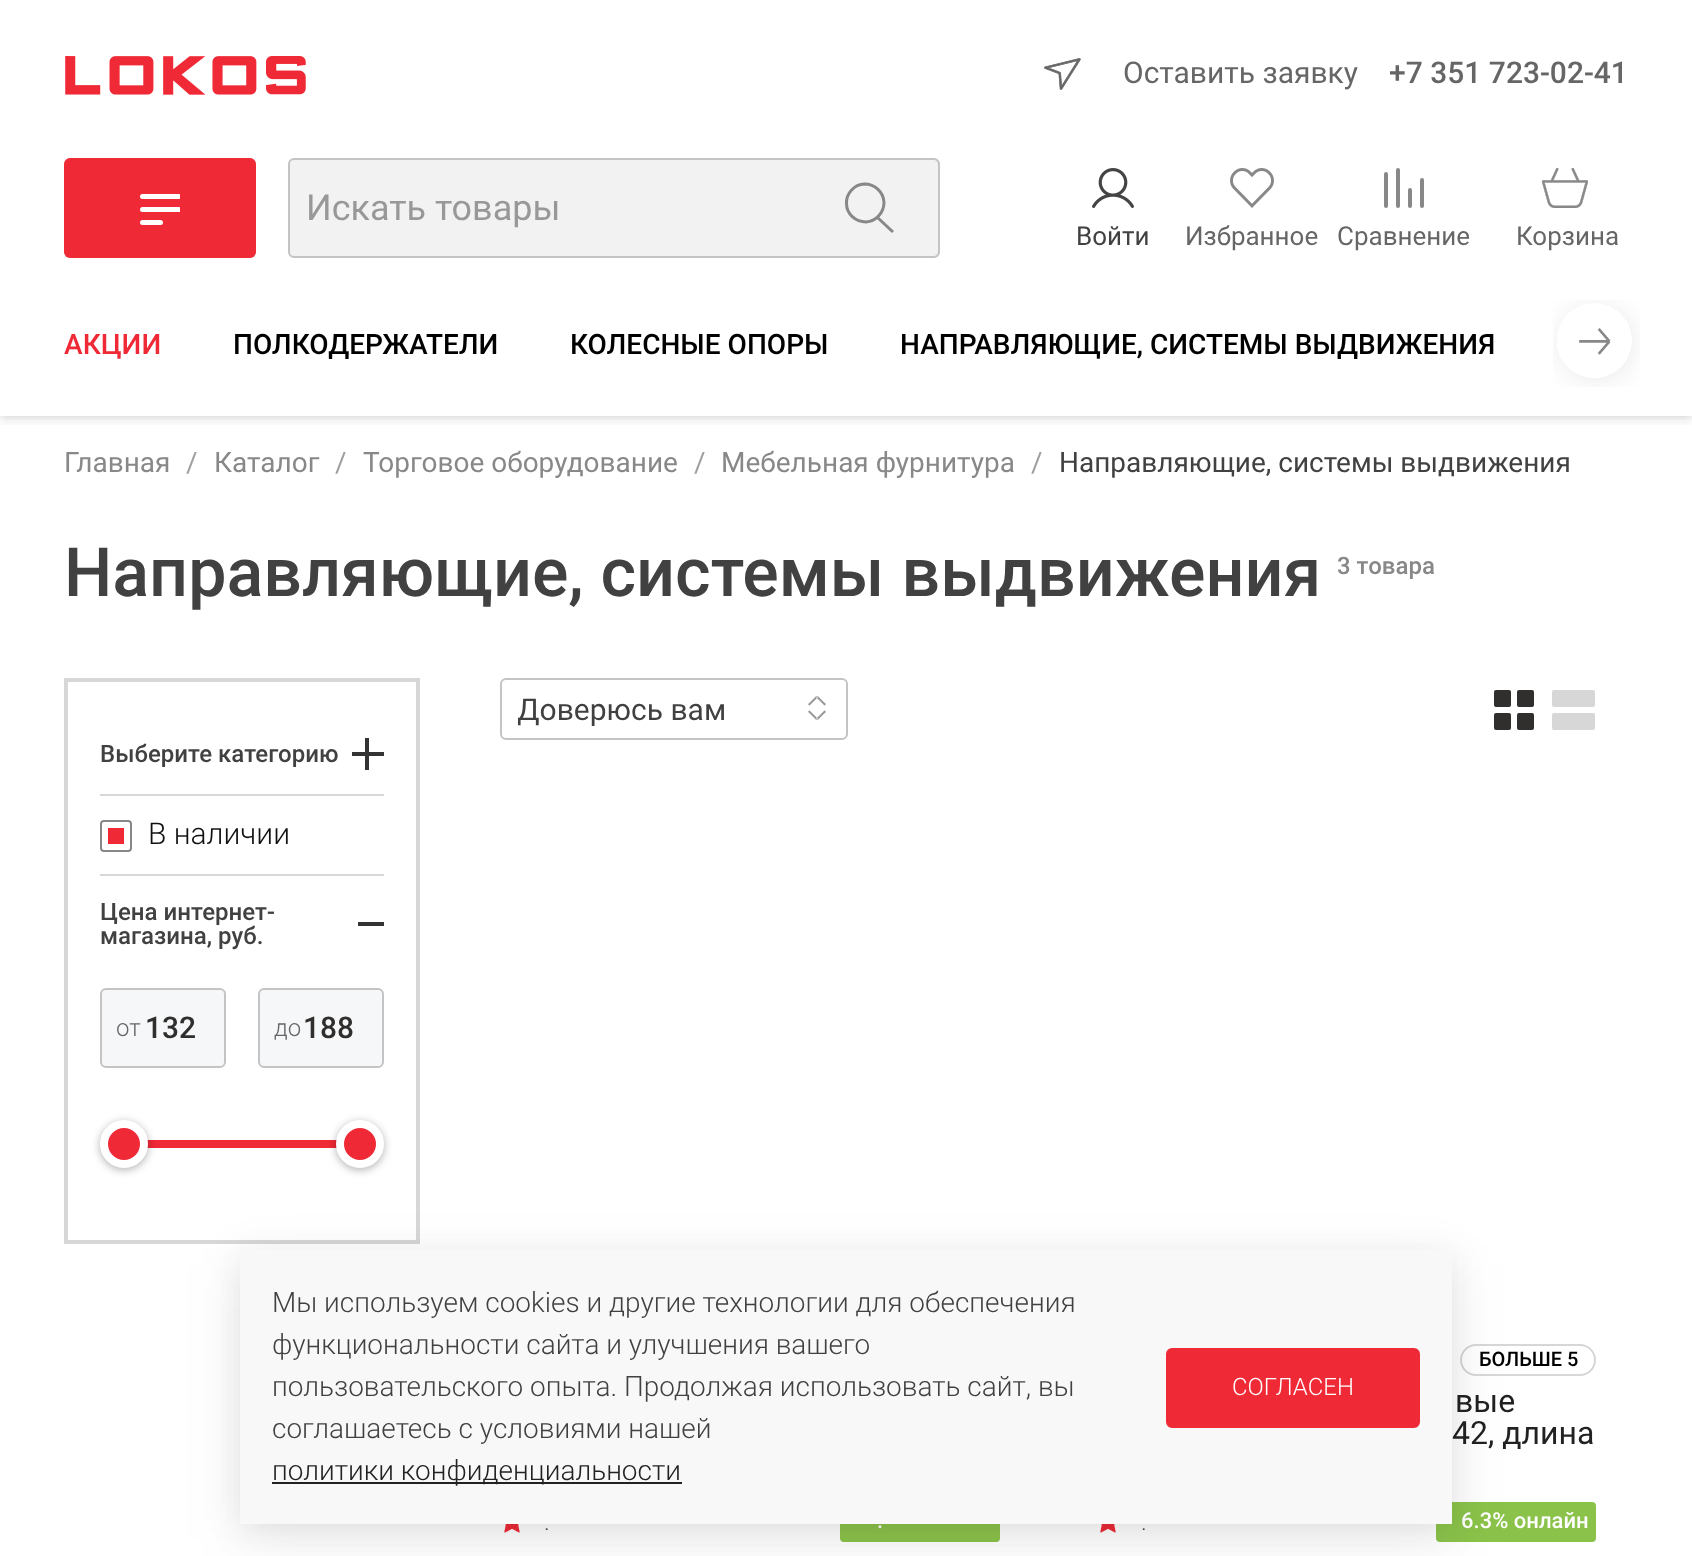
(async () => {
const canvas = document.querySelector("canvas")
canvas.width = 1692
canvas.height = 1556
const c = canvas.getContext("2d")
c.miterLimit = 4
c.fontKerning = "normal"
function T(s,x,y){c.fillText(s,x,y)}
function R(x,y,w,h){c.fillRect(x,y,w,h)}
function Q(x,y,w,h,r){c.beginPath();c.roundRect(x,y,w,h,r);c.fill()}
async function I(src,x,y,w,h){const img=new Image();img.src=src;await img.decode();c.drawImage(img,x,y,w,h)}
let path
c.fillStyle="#fff"
R(0,0,1692,1556)
c.save()
c.beginPath()
c.rect(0,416,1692,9)
c.clip()
c.fillStyle="#0000000d"
c.filter="blur(4px)"
c.beginPath()
c.rect(0,8,1692,416)
c.fill()
c.filter="none"
c.restore()
c.save()
c.beginPath()
c.rect(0,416,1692,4)
c.clip()
c.fillStyle="#0000001f"
c.filter="blur(4px)"
c.beginPath()
c.rect(0,0,1692,416)
c.fill()
c.filter="none"
c.restore()
await I("1.png",65,56,241,39)
await I("2.png",1044,58,37,32)
c.font="30px Roboto"
c.fillStyle="#666"
T("Оставить заявку",1123,83)
c.font="500 30px Roboto"
T("+7 351 723-02-41",1389,83)
c.fillStyle="#ef2936"
Q(64,158,192,100,6)
c.save()
c.beginPath()
c.rect(140,194,40,32)
c.clip()
c.fillStyle="#fff"
Q(140,207,41,5,2.5)
Q(140,194,41,5,2.5)
c.restore()
c.fillStyle="#fff"
Q(140,220,23,5,2.5)
c.fillStyle="#f2f2f2"
c.beginPath()
c.roundRect(289,159,512,98,[5,0,0,5])
c.fill()
c.strokeStyle="#c4c4c4"
c.lineWidth=2
c.stroke()
c.font="36px Roboto"
c.fillStyle="#989899"
T("Искать товары",306,220)
c.fillStyle="#f2f2f2"
c.beginPath()
c.roundRect(800,158,140,100,[0,6,6,0])
c.fill()
path = new Path2D("M864.5 184c10.5 0 19 8 19.5 18.5c0 10-8 19-18 19.5c-10.5 0-19.5-8-19.5-18.5c-.5-10 7.5-19 18-19.5zm13.5 34l15 14")
c.strokeStyle="#888"
c.lineWidth=3
c.stroke(path)
c.fillStyle="#c4c4c4"
path = new Path2D("M800 158h134c3 0 6 3 6 6v88c0 3-3 6-6 6h-134zm0 2h134c2 0 4 2 4 4v88c0 2-2 4-4 4h-134z")
c.fill(path,"evenodd")
await I("3.png",1092,168,42,40)
c.font="26px Roboto"
c.fillStyle="#414142"
T("Войти",1076,245)
await I("4.png",1230,168,44,40)
c.fillStyle="#666"
T("Избранное",1185,245)
c.fillStyle="#888"
Q(1384,172,4,36,2)
Q(1396,168,4,40,2)
Q(1408,188,4,20,2)
Q(1420,178,4,30,2)
c.fillStyle="#666"
T("Сравнение",1337,245)
await I("5.png",1541,168,47,40)
T("Корзина",1516,245)
c.font="500 28px Roboto"
c.fillStyle="#ef2936"
T("АКЦИИ",64,354)
c.fillStyle="#000"
T("ПОЛКОДЕРЖАТЕЛИ",233,354)
T("КОЛЕСНЫЕ ОПОРЫ",570,354)
T("НАПРАВЛЯЮЩИЕ, СИСТЕМЫ ВЫДВИЖЕНИЯ",900,354)
await I("6.png",1553,300,87,87)
c.font="28px Roboto"
c.fillStyle="#888"
T("Главная",64,472)
c.fillStyle="#a0a0a1"
T("/",186,472)
c.fillStyle="#888"
T("Каталог",214,472)
c.fillStyle="#a0a0a1"
T("/",335,472)
c.fillStyle="#888"
T("Торговое оборудование",363,472)
c.fillStyle="#a0a0a1"
T("/",694,472)
c.fillStyle="#888"
T("Мебельная фурнитура",721,472)
c.fillStyle="#a0a0a1"
T("/",1031,472)
c.fillStyle="#414142"
T("Направляющие, системы выдвижения",1059,472)
c.font="500 68px Roboto"
T("Направляющие, системы выдвижения",64,596)
c.font="500 24px Roboto"
c.fillStyle="#888"
T("3 товара",1337,574)
c.strokeStyle="#d7d7d7"
c.lineWidth=4
c.strokeRect(66,680,352,562)
c.fillStyle="#d7d7d7"
R(100,794,284,2)
c.fillStyle="#414142"
T("Выберите категорию",100,762)
c.fillStyle="#333"
R(352,752,32,4)
R(365,738,4,32)
c.fillStyle="#d7d7d7"
R(100,874,284,2)
c.beginPath()
c.roundRect(101,821,30,30,3)
c.strokeStyle="#888"
c.lineWidth=2
c.stroke()
c.fillStyle="#ef2936"
R(108,828,16,16)
c.font="300 30px Roboto"
c.fillStyle="#111113"
T("В наличии",148,844)
c.font="500 24px Roboto"
c.fillStyle="#414142"
T("Цена интернет-",100,920)
T("магазина, руб.",100,944)
c.fillStyle="#333"
R(358,922,26,4)
c.fillStyle="#f5f7f9"
c.beginPath()
c.roundRect(101,989,124,78,5)
c.fill()
c.strokeStyle="#c4c4c4"
c.stroke()
c.font="300 24px Roboto"
c.fillStyle="#666"
T("от",116,1036)
c.font="500 30px Roboto"
c.fillStyle="#302f2d"
T("132",145,1038)
c.fillStyle="#f5f7f9"
c.beginPath()
c.roundRect(259,989,124,78,5)
c.fill()
c.stroke()
c.font="300 24px Roboto"
c.fillStyle="#666"
T("до",274,1036)
c.font="500 30px Roboto"
c.fillStyle="#302f2d"
T("188",303,1038)
c.fillStyle="#ef2936"
R(147,1140,190,8)
c.fillStyle="#0000004d"
c.filter="blur(4px)"
c.beginPath()
c.roundRect(100,1122,48,48,24)
c.fill()
c.filter="none"
c.fillStyle="#ef2936"
c.beginPath()
c.arc(124,1144,20,0,7)
c.fill()
c.strokeStyle="#fff"
c.lineWidth=8
c.stroke()
c.fillStyle="#0000004d"
c.filter="blur(4px)"
c.beginPath()
c.roundRect(336,1122,48,48,24)
c.fill()
c.filter="none"
c.fillStyle="#ef2936"
c.beginPath()
c.arc(360,1144,20,0,7)
c.fill()
c.stroke()
await I("7.png",808,696,18,24)
c.beginPath()
c.roundRect(501,679,346,60,5)
c.strokeStyle="#c4c4c4"
c.lineWidth=2
c.stroke()
c.save()
c.beginPath()
c.rect(518,680,272,62)
c.clip()
c.font="30px Roboto"
c.fillStyle="#414142"
T("Доверюсь вам",517,720)
c.restore()
c.fillStyle="#302f2d"
Q(1494,690,17,17,2)
Q(1517,690,17,17,2)
Q(1494,713,17,17,2)
Q(1517,713,17,17,2)
c.fillStyle="#d7d7d7"
Q(1552,690,43,17,2)
Q(1552,713,43,17,2)
c.fillStyle="#8bc34a"
Q(840,1502,160,40,4)
c.font="500 22px Roboto"
c.fillStyle="#fff"
T(".",877,1528)
await I("8.png",504,1524,16,9)
c.font="300 24px Roboto"
c.fillStyle="#414142"
T(".",544,1530)
c.beginPath()
c.roundRect(1461,1345,134,30,15)
c.strokeStyle="#d7d7d7"
c.stroke()
c.font="500 20px Roboto"
c.fillStyle="#000"
T("БОЛЬШЕ 5",1479,1366)
c.font="32px Roboto"
c.fillStyle="#222"
T("вые",1455,1412)
T("42, длина",1452,1444)
c.fillStyle="#8bc34a"
Q(1436,1502,160,40,4)
c.font="500 22px Roboto"
c.fillStyle="#fff"
T("6.3% онлайн",1461,1528)
await I("8.png",1100,1524,16,9)
c.font="300 24px Roboto"
c.fillStyle="#414142"
T(".",1141,1530)
c.fillStyle="#11111a0d"
c.filter="blur(32px)"
c.beginPath()
c.rect(240,1266,1212,274)
c.fill()
c.filter="none"
c.fillStyle="#11111a1a"
c.filter="blur(16px)"
c.beginPath()
c.rect(240,1258,1212,274)
c.fill()
c.filter="none"
c.fillStyle="#f8f8f8"
R(240,1250,1212,274)
c.font="300 28px Roboto"
c.fillStyle="#414142"
T("Мы используем cookies и другие технологии для обеспечения",272,1312)
T("функциональности сайта и улучшения вашего",272,1354)
T("пользовательского опыта. Продолжая использовать сайт, вы",272,1396)
T("соглашаетесь с условиями нашей",272,1438)
c.fillStyle="#222"
R(272,1482,410,2)
T("политики конфиденциальности",272,1480)
c.fillStyle="#ef2936"
c.beginPath()
c.roundRect(1167,1349,252,78,5)
c.fill()
c.strokeStyle="#ef2936"
c.stroke()
c.font="300 24px Roboto"
c.fillStyle="#fff"
T("СОГЛАСЕН",1232,1395)
})()
